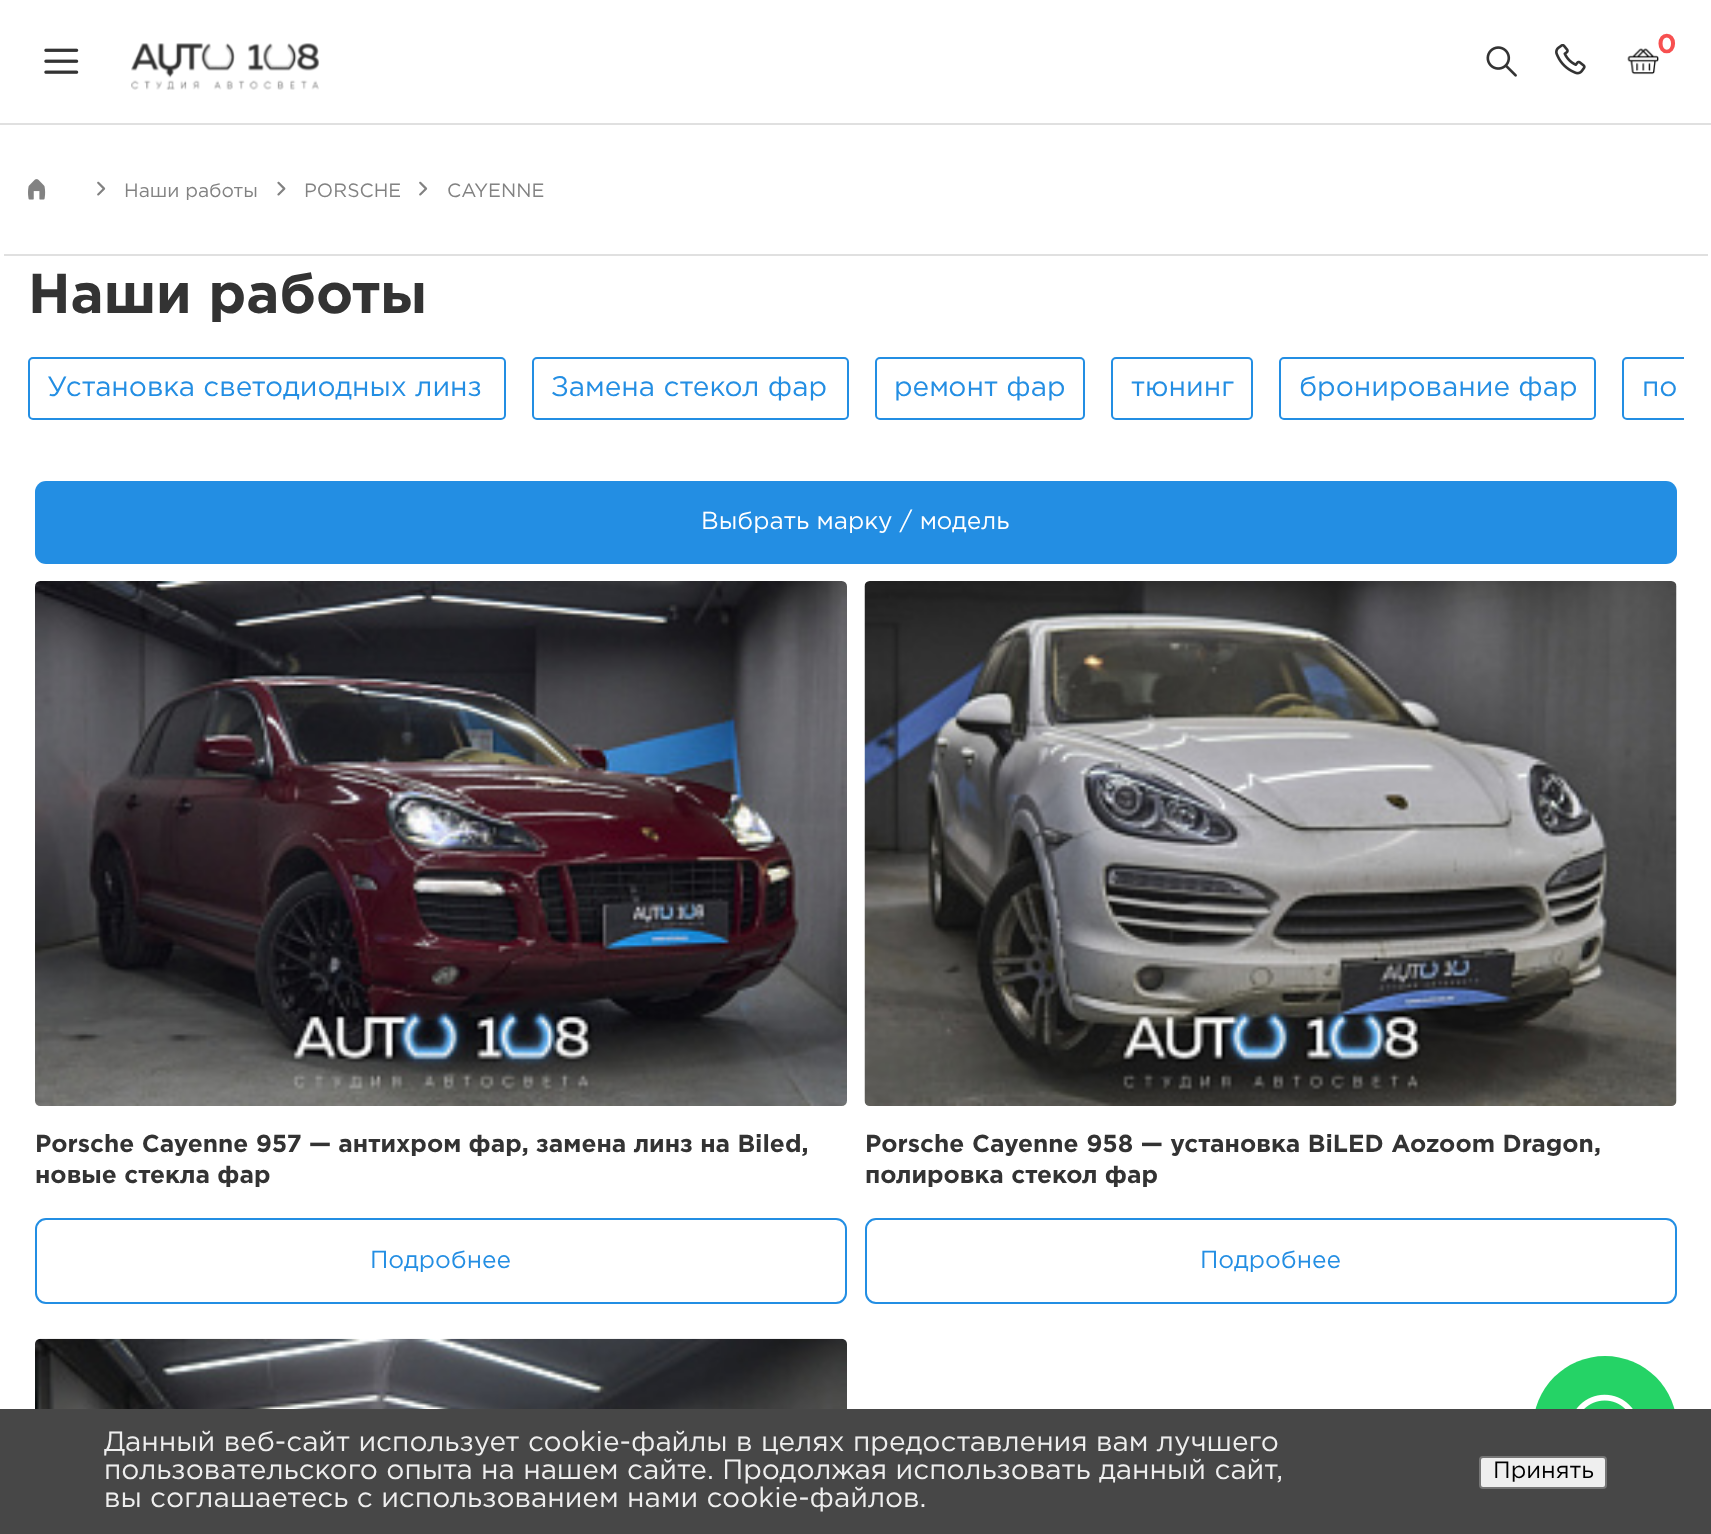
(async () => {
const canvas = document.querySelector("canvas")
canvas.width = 1711
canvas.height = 1534
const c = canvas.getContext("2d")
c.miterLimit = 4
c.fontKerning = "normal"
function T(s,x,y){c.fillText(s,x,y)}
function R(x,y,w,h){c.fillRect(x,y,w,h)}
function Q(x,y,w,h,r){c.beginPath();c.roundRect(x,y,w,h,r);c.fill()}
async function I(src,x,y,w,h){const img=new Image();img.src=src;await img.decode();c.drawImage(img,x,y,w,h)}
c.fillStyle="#fff"
R(0,0,1711,1534)
c.fillStyle="#e0e0e0"
R(0,123,1711,2)
await I("1.png",44,48,35,26)
await I("2.png",131,43,189,47)
await I("3.png",1486,46,31,31)
await I("4.png",1555,44,31,31)
c.font="bold 26px 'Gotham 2'"
c.fillStyle="#f75050"
T("0",1657,53)
await I("5.png",1627,48,32,27)
c.fillStyle="#e0e0e0"
R(4,254,1704,2)
await I("6.png",28,179,18,21)
await I("7.png",97,181,9,15)
c.font="19.25px Gotham"
c.fillStyle="#828282"
T("Наши работы",124,197)
await I("8.png",277,181,9,15)
T("PORSCHE",304,197)
await I("7.png",419,181,9,15)
T("CAYENNE",447,197)
c.font="bold 56px Gotham"
c.fillStyle="#333"
T("Наши работы",28,313)
c.beginPath()
c.roundRect(29,358,476,61,4)
c.strokeStyle="#238ee3"
c.lineWidth=2
c.stroke()
c.font="28px Gotham"
c.fillStyle="#238ee3"
T("Установка светодиодных линз",47,396)
c.beginPath()
c.roundRect(533,358,315,61,4)
c.stroke()
T("Замена стекол фар",551,396)
c.beginPath()
c.roundRect(876,358,208,61,4)
c.stroke()
T("ремонт фар",894,396)
c.beginPath()
c.roundRect(1112,358,140,61,4)
c.stroke()
T("тюнинг",1131,396)
c.beginPath()
c.roundRect(1280,358,315,61,4)
c.stroke()
T("бронирование фар",1299,396)
c.save()
c.beginPath()
c.rect(28,357,1656,72)
c.clip()
c.beginPath()
c.roundRect(1623,358,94,61,4)
c.stroke()
c.restore()
T("по",1642,396)
Q(35,481,1642,83,11)
c.font="24.5px Gotham"
c.fillStyle="#fff"
T("Выбрать марку / модель",701,529)
await I("9.png",35,581,812,525)
c.font="bold 24.5px Gotham"
c.fillStyle="#333"
T("Porsche Cayenne 957 — антихром фар, замена линз на Biled,",35,1152)
T("новые стекла фар",35,1183)
c.beginPath()
c.roundRect(36,1219,810,84,10)
c.stroke()
c.font="24.5px Gotham"
c.fillStyle="#238ee3"
T("Подробнее",370,1268)
await I("10.png",864,581,813,525)
c.wordSpacing="0.25px"
c.font="bold 24.5px Gotham"
c.fillStyle="#333"
T("Porsche Cayenne 958 — установка BiLED Aozoom Dragon,",865,1152)
c.wordSpacing="0px"
T("полировка стекол фар",865,1183)
c.beginPath()
c.roundRect(866,1219,810,84,10)
c.stroke()
c.font="24.5px Gotham"
c.fillStyle="#238ee3"
T("Подробнее",1200,1268)
await I("11.png",35,1338,812,71)
c.fillStyle="#25d366"
c.beginPath()
c.arc(1605,1428,72,0,7)
c.fill()
await I("12.png",1576,1394,57,15)
c.fillStyle="#474747"
R(0,1409,1711,125)
c.font="28px Gotham"
c.fillStyle="#eee"
T("Данный веб-сайт использует cookie-файлы в целях предоставления вам лучшего",104,1451)
T("пользовательского опыта на нашем сайте. Продолжая использовать данный сайт,",104,1479)
T("вы соглашаетесь с использованием нами cookie-файлов.",104,1507)
c.fillStyle="#efefef"
c.beginPath()
c.roundRect(1480,1457,126,31,3)
c.fill()
c.strokeStyle="#767676"
c.stroke()
c.font="23.5px Gotham"
c.fillStyle="#000"
T("Принять",1493,1478)
})()
